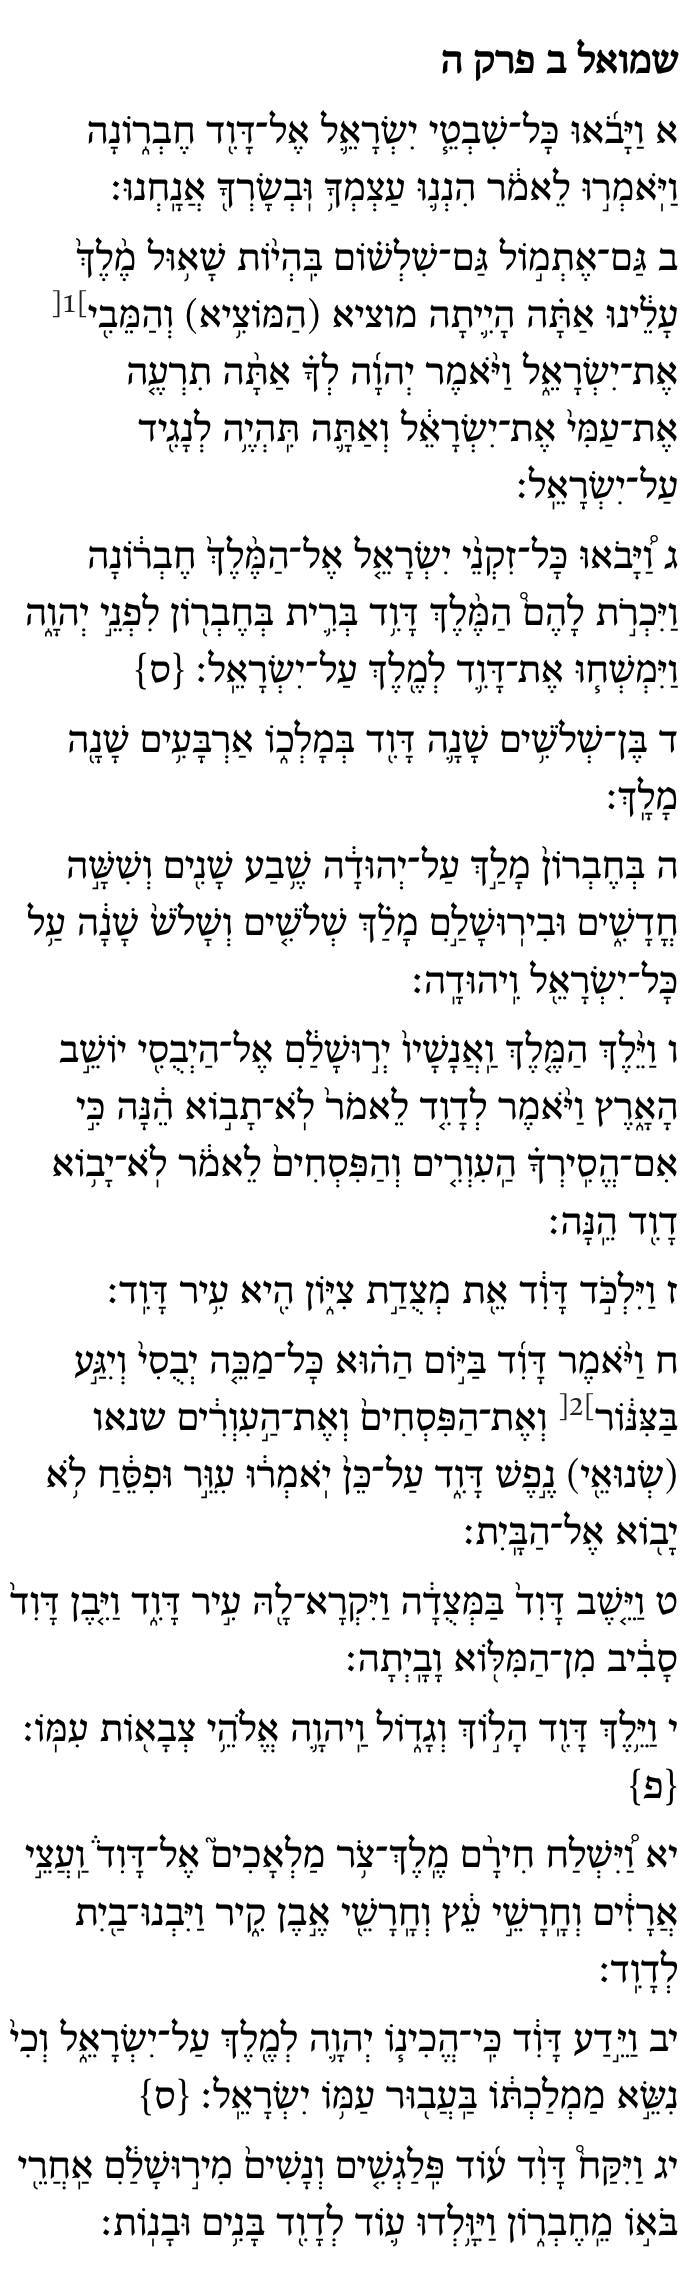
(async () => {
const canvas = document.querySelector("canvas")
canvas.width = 684
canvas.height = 2274
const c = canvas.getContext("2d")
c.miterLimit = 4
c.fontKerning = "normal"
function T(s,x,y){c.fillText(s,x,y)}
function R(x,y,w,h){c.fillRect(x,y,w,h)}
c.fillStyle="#fff"
R(0,0,684,2274)
c.direction="rtl"
c.font="bold 40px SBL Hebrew"
c.fillStyle="#000"
T("שמואל ב פרק ה",678,73)
c.font="40px SBL Hebrew"
T("א וַיָּבֹ֜אוּ כָּל־שִׁבְטֵ֧י יִשְׂרָאֵ֛ל אֶל־דָּוִ֖ד חֶבְר֑וֹנָה",678,143)
T("וַיֹּֽאמְר֣וּ לֵאמֹ֔ר הִנְנ֛וּ עַצְמְךָ֥ וּֽבְשָׂרְךָ֖ אֲנָֽחְנוּ׃",678,200)
T("ב גַּם־אֶתְמ֣וֹל גַּם־שִׁלְשׁ֗וֹם בִּֽהְי֨וֹת",678,270)
T("שָׁא֥וּל מֶ֨לֶךְ֙",226,270)
T("עָלֵ֔ינוּ אַתָּ֗ה הָיִ֛יתָה מוציא (הַמּוֹצִ֥יא) וְהַמֵּבִ֖י",678,327)
c.direction="ltr"
c.font="30px SBL Hebrew"
c.fillStyle="#222"
T("]1[",51,312)
c.direction="rtl"
c.font="40px SBL Hebrew"
c.fillStyle="#000"
T("אֶת־יִשְׂרָאֵ֑ל וַיֹּ֨אמֶר יְהוָ֜ה לְךָ֗ אַתָּ֨ה תִרְעֶ֤ה",678,384)
T("אֶת־עַמִּי֙ אֶת־יִשְׂרָאֵ֔ל וְאַתָּ֛ה תִּֽהְיֶ֥ה לְנָגִ֖יד",678,441)
T("עַל־יִשְׂרָאֵֽל׃",678,498)
T("ג וַ֠יָּבֹאוּ כָּל־זִקְנֵ֨י יִשְׂרָאֵ֤ל אֶל־הַמֶּ֨לֶךְ֙ חֶבְר֔וֹנָה",678,568)
T("וַיִּכְרֹ֣ת לָהֶם֩ הַמֶּ֨לֶךְ דָּוִ֥ד בְּרִ֛ית בְּחֶבְר֖וֹן לִפְנֵ֣י יְהוָ֑ה",678,625)
T("וַיִּמְשְׁח֧וּ אֶת־דָּוִ֛ד לְמֶ֖לֶךְ עַל־יִשְׂרָאֵֽל׃ {ס}",678,682)
T("ד בֶּן־שְׁלֹשִׁ֥ים שָׁנָ֛ה דָּוִ֖ד בְּמָלְכ֑וֹ אַרְבָּעִ֥ים שָׁנָ֖ה",678,752)
T("מָלָֽךְ׃",678,809)
T("ה בְּחֶבְרוֹן֙ מָלַ֣ךְ עַל־יְהוּדָ֔ה שֶׁ֥בַע שָׁנִ֖ים וְשִׁשָּׁ֣ה",678,878)
T("חֳדָשִׁ֑ים וּבִירֽוּשָׁלִַ֣ם מָלַ֗ךְ שְׁלֹשִׁ֤ים וְשָׁלֹשׁ֙ שָׁנָ֔ה עַ֥ל",678,935)
T("כָּל־יִשְׂרָאֵ֖ל וִֽיהוּדָֽה׃",678,993)
T("ו וַיֵּ֨לֶךְ הַמֶּ֤לֶךְ וַֽאֲנָשָׁיו֙ יְר֣וּשָׁלִַ֔ם אֶל־הַיְבֻסִ֖י יוֹשֵׁ֣ב",678,1062)
T("הָאָ֑רֶץ וַיֹּ֨אמֶר לְדָוִ֤ד לֵאמֹר֙ לֹֽא־תָב֣וֹא הֵ֔נָּה כִּ֣י",678,1119)
T("אִם־הֱסִֽירְךָ֗ הַֽעִוְרִ֤ים וְהַפִּסְחִים֙ לֵאמֹ֔ר לֹֽא־יָב֥וֹא",678,1176)
T("דָוִ֖ד הֵֽנָּה׃",678,1234)
T("ז וַיִּלְכֹּ֣ד דָּוִ֔ד אֵ֖ת מְצֻדַ֣ת צִיּ֑וֹן הִ֖יא עִ֥יר דָּוִֽד׃",678,1303)
T("ח וַיֹּ֨אמֶר",678,1373)
T("דָּוִ֜ד בַּיּ֣וֹם הַה֗וּא כָּל־מַכֵּ֤ה יְבֻסִי֙ וְיִגַּ֣ע",547,1373)
T("בַּצִּנּ֔וֹר",678,1430)
c.direction="ltr"
c.font="30px SBL Hebrew"
c.fillStyle="#222"
T("]2[",558,1415)
c.direction="rtl"
c.font="40px SBL Hebrew"
c.fillStyle="#000"
T("וְאֶת־הַפִּסְחִים֙ וְאֶת־הַ֣עִוְרִ֔ים שנאו",547,1430)
T("(שְׂנוּאֵ֖י) נֶ֣פֶשׁ דָּוִ֑ד עַל־כֵּן֙ יֹֽאמְר֔וּ עִוֵּ֣ר וּפִסֵּ֔חַ לֹ֥א",678,1487)
T("יָב֖וֹא אֶל־הַבָּֽיִת׃",678,1544)
T("ט וַיֵּ֤שֶׁב דָּוִד֙ בַּמְּצֻדָ֔ה וַיִּקְרָא־לָ֖הּ עִ֣יר דָּוִ֑ד וַיִּ֤בֶן דָּוִד֙",678,1614)
T("סָבִ֔יב מִן־הַמִּלּ֖וֹא וָבָֽיְתָה׃",678,1671)
T("י וַיֵּ֥לֶךְ דָּוִ֖ד הָל֣וֹךְ וְגָד֑וֹל וַֽיהוָ֛ה אֱלֹהֵ֥י צְבָא֖וֹת עִמּֽוֹ׃",678,1741)
T("{פ}",678,1798)
T("יא וַ֠יִּשְׁלַח חִירָ֨ם מֶֽלֶךְ־צֹ֥ר מַלְאָכִים֮ אֶל־דָּוִד֒ וַֽעֲצֵ֣י",678,1867)
T("אֲרָזִ֔ים וְחָֽרָשֵׁ֣י עֵ֔ץ וְחָֽרָשֵׁ֖י אֶ֣בֶן קִ֑יר וַיִּבְנוּ־בַ֖יִת",678,1925)
T("לְדָוִֽד׃",678,1982)
T("יב וַיֵּ֣דַע דָּוִ֔ד כִּֽי־הֱכִינ֧וֹ יְהוָ֛ה לְמֶ֖לֶךְ עַל־יִשְׂרָאֵ֑ל וְכִי֙",678,2051)
T("נִשֵּׂ֣א מַמְלַכְתּ֔וֹ בַּֽעֲב֖וּר עַמּ֥וֹ יִשְׂרָאֵֽל׃ {ס}",678,2108)
T("יג וַיִּקַּח֩ דָּוִ֨ד ע֜וֹד פִּֽלַגְשִׁ֤ים וְנָשִׁים֙ מִיר֣וּשָׁלִַ֔ם אַֽחֲרֵ֖י",678,2178)
T("בֹּא֣וֹ מֵֽחֶבְר֑וֹן וַיִּוָּ֥לְדוּ ע֛וֹד לְדָוִ֖ד בָּנִ֥ים וּבָנֽוֹת׃",678,2235)
})()
